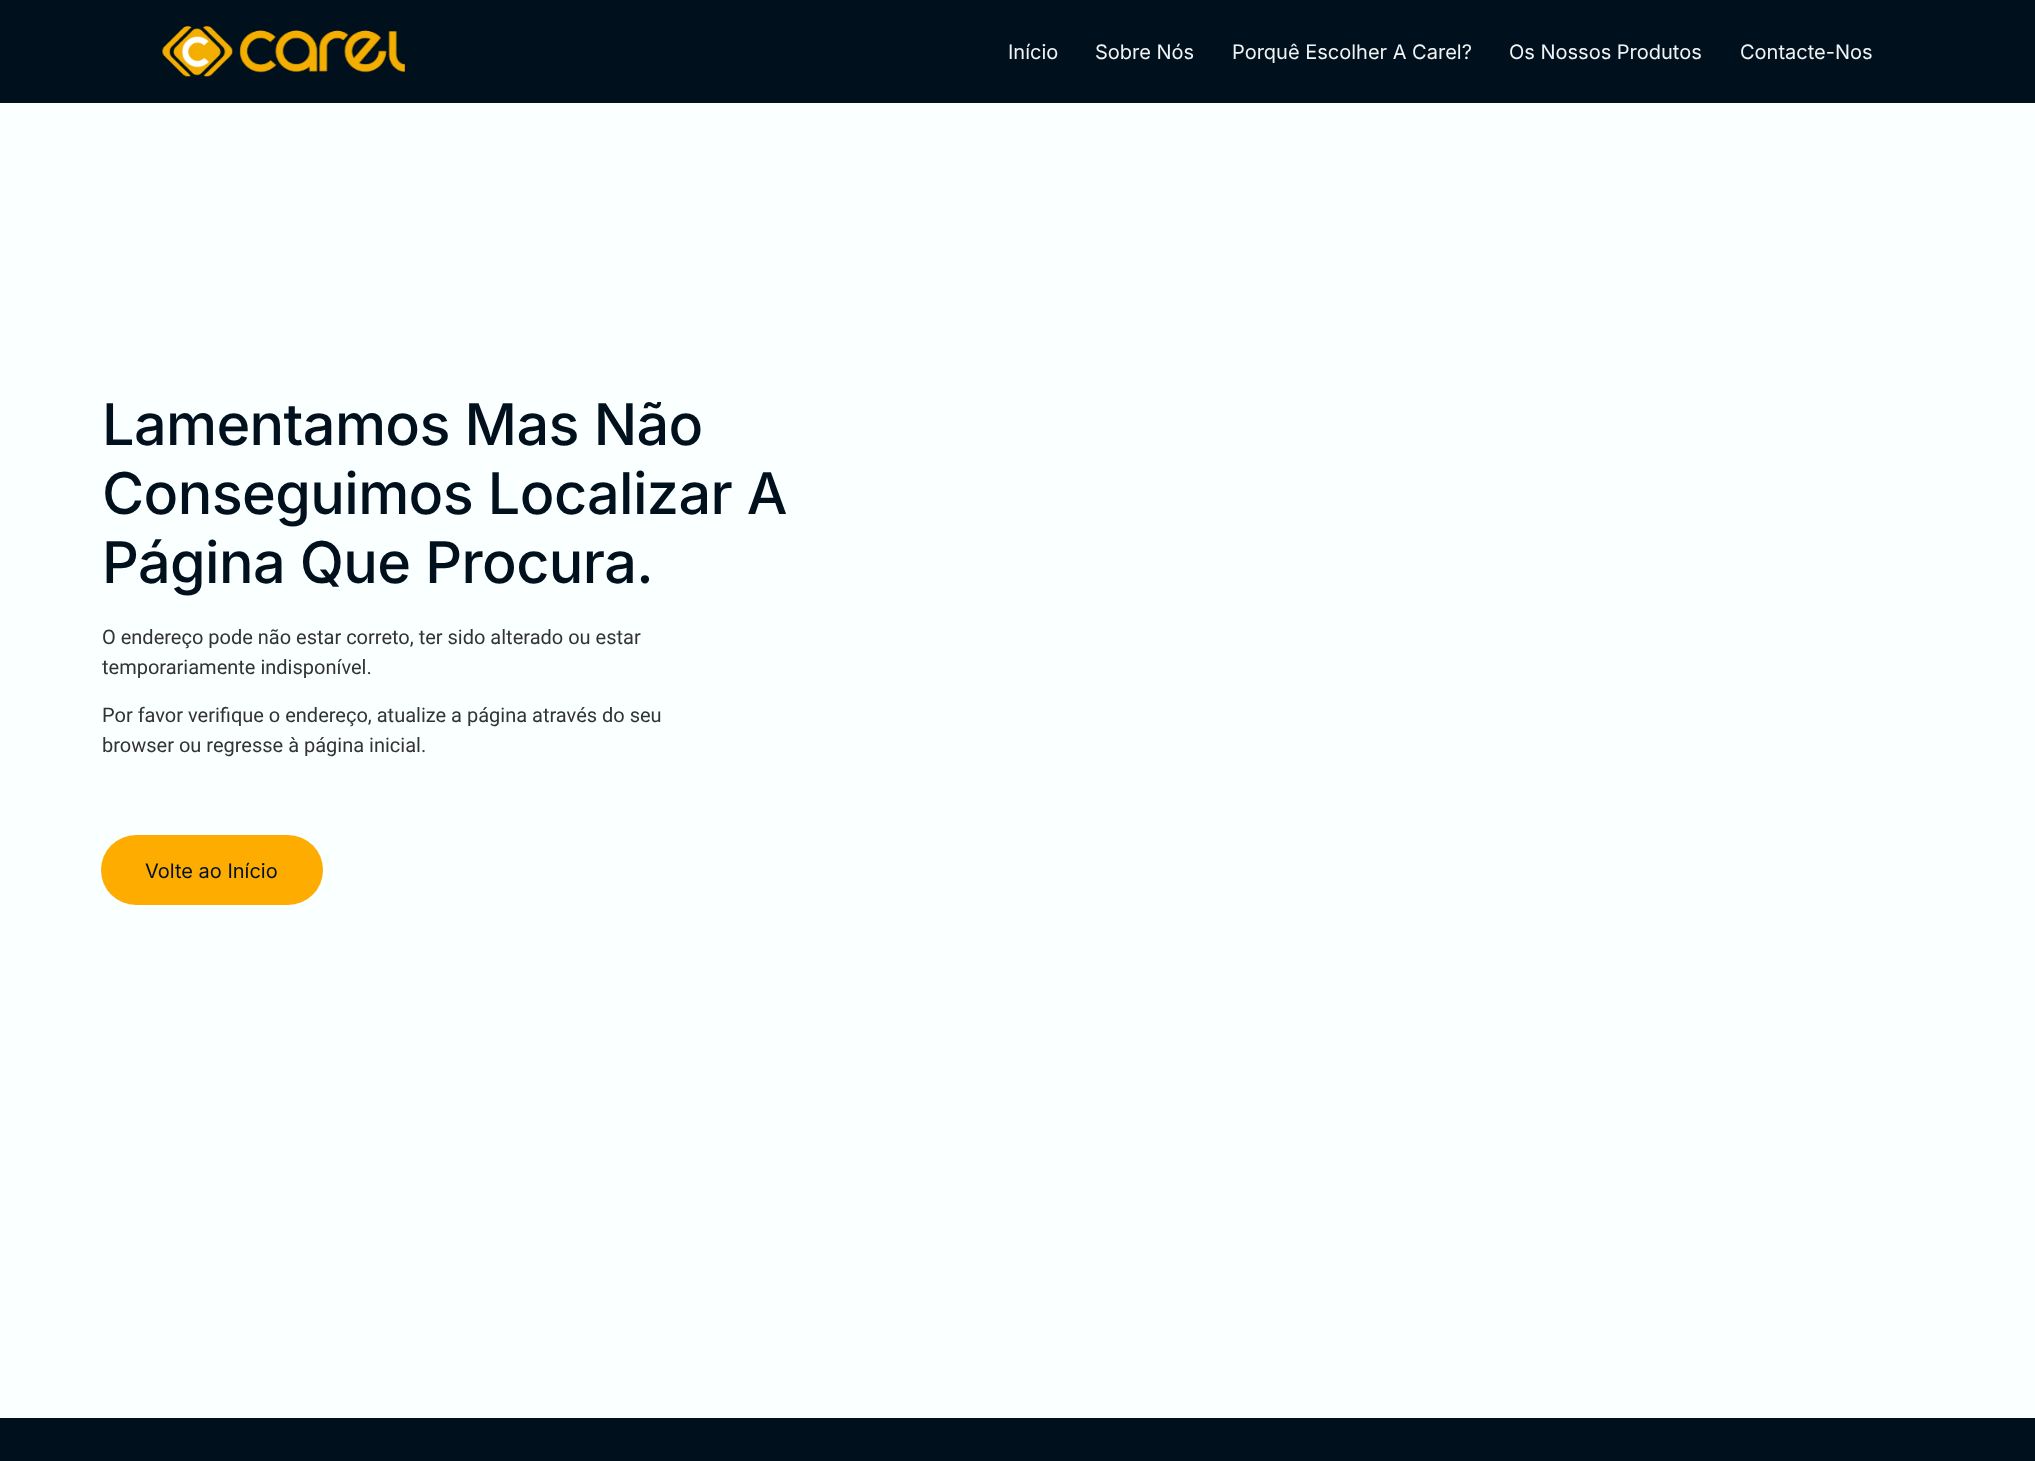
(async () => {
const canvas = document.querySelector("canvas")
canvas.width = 2035
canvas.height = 1461
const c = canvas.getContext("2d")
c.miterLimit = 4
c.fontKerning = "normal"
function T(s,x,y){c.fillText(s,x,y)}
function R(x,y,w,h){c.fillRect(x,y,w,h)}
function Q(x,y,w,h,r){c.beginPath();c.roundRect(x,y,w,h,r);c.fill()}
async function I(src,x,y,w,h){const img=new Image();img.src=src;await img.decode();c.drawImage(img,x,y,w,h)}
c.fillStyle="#faffff"
R(0,0,2035,1461)
c.fillStyle="#00101d"
R(0,0,2035,103)
await I("1.png",162,26,243,51)
c.font="20px Inter"
c.fillStyle="#f0f4f5"
T("Início",1008,59)
T("Sobre Nós",1095,59)
T("Porquê Escolher A Carel?",1232,59)
T("Os Nossos Produtos",1509,59)
T("Contacte-Nos",1740,59)
c.letterSpacing="-0.6px"
c.font="500 57.5px Inter"
c.fillStyle="#00101d"
T("Lamentamos Mas Não",102,445)
T("Conseguimos Localizar A",102,514)
T("Página Que Procura.",102,583)
c.letterSpacing="0px"
c.font="20px Roboto"
c.fillStyle="#333"
T("O endereço pode não estar correto, ter sido alterado ou estar",102,644)
T("temporariamente indisponível.",102,674)
T("Por favor verifique o endereço, atualize a página através do seu",102,722)
T("browser ou regresse à página inicial.",102,752)
c.fillStyle="#ffac00"
Q(101,835,222,70,35)
c.font="20px Inter"
c.fillStyle="#00101d"
T("Volte ao Início",145,878)
R(0,1418,2035,43)
})()
